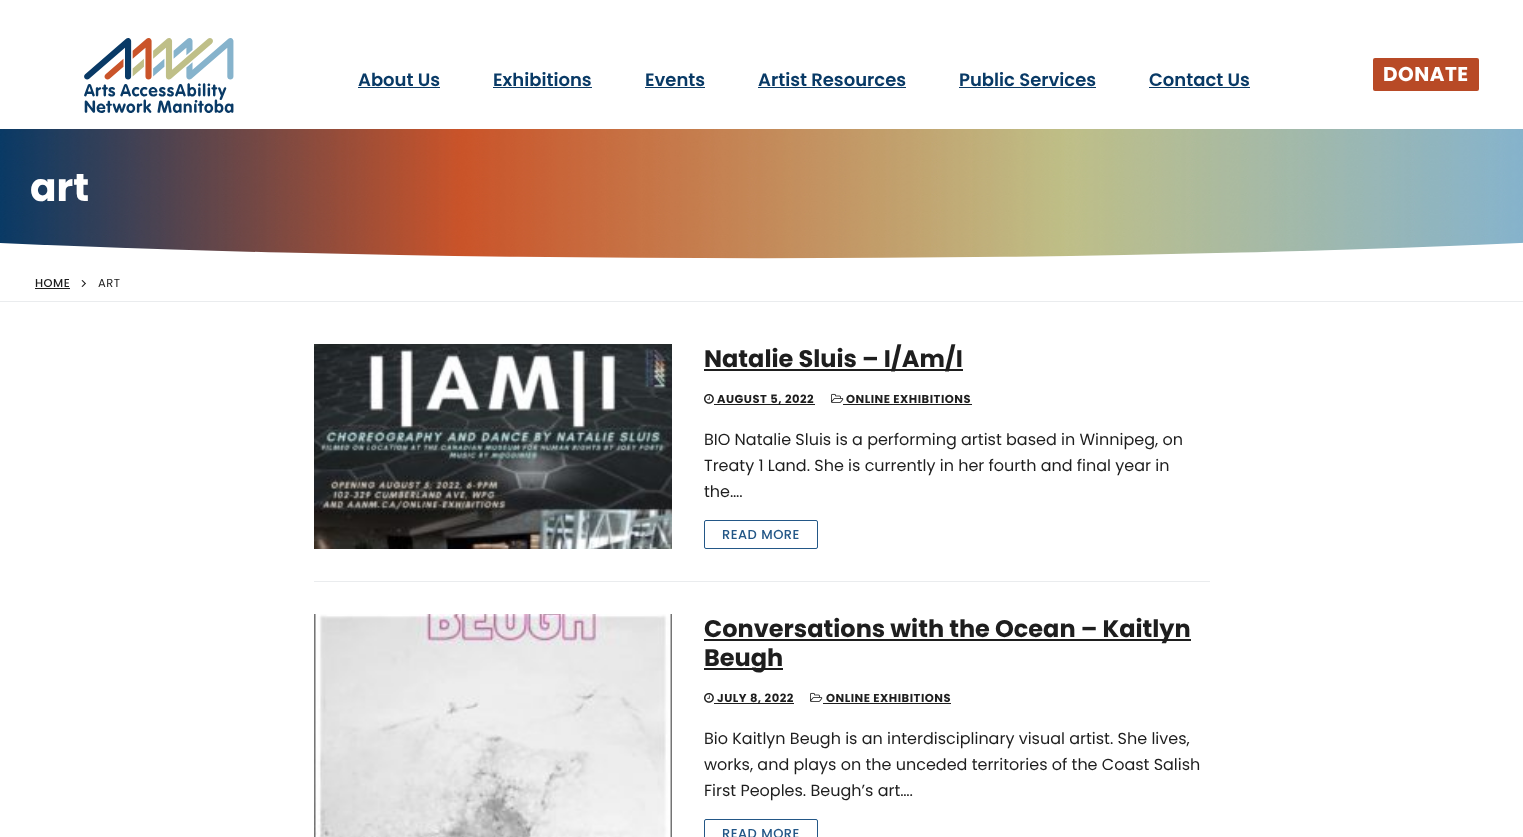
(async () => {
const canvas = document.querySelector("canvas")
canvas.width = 1523
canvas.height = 837
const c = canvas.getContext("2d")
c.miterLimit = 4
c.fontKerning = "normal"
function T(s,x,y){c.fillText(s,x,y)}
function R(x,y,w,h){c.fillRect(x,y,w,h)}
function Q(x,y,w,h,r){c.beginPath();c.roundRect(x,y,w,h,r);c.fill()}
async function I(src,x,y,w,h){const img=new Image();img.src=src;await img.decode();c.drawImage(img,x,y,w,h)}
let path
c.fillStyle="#fff"
R(0,0,1523,837)
await I("1.png",84,38,150,75)
c.font="600 18px Poppins"
c.fillStyle="#093a66"
T("About Us",358,86)
R(358,87,82,1)
T("Exhibitions",493,86)
R(493,87,99,1)
T("Events",645,86)
R(645,87,60,1)
T("Artist Resources",758,86)
R(758,87,148,1)
T("Public Services",959,86)
R(959,87,137,1)
T("Contact Us",1149,86)
R(1149,87,101,1)
c.fillStyle="#b84a26"
Q(1373,58,106,33,2)
c.letterSpacing="0.5px"
c.font="bold 20px Poppins"
c.fillStyle="#fff"
T("DONATE",1383,81)
await I("2.png",0,129,1523,130)
c.letterSpacing="0px"
c.font="bold 39px Poppins"
T("art",30,201)
c.fillStyle="#eaecee"
R(0,301,1523,1)
c.letterSpacing="0.5px"
c.font="500 11.5px Poppins"
c.fillStyle="#1e1e1e"
T("HOME",35,287)
R(35,288,35,1)
path = new Path2D("M86 283.5l-3.5 3.5l-1-.5l3.5-3.5z")
c.fill(path)
path = new Path2D("M86 283.5l-1 .5l-3.5-3.5l1-.5z")
c.fill(path)
c.font="11.5px Poppins"
T("ART",98,287)
c.fillStyle="#eaecee"
R(314,581,896,1)
await I("3.png",314,344,358,205)
c.fillStyle="#1e1e1e"
R(704,369,259,2)
c.letterSpacing="0px"
c.font="bold 24px Poppins"
T("Natalie Sluis – I/Am/I",704,367)
await I("4.png",704,394,10,10)
R(714,404,101,1)
c.letterSpacing="0.5px"
c.font="bold 11.5px Poppins"
T("AUGUST 5, 2022",717,403)
await I("5.png",831,393,13,10)
T("ONLINE EXHIBITIONS",846,403)
R(843,404,129,1)
c.letterSpacing="0px"
c.font="16px Poppins"
T("BIO Natalie Sluis is a performing artist based in Winnipeg, on",704,445)
T("Treaty 1 Land. She is currently in her fourth and final year in",704,471)
T("the….",704,497)
c.beginPath()
c.roundRect(704.5,520.5,113,28,1.5)
c.strokeStyle="#235787"
c.stroke()
c.letterSpacing="0.5px"
c.font="500 13px Poppins"
c.fillStyle="#235787"
T("READ MORE",722,539)
await I("6.png",314,614,358,223)
c.fillStyle="#1e1e1e"
R(704,639,487,2)
c.letterSpacing="0px"
c.font="bold 24px Poppins"
T("Conversations with the Ocean – Kaitlyn",704,637)
R(704,668,79,2)
T("Beugh",704,666)
await I("4.png",704,693,10,10)
R(714,703,80,1)
c.letterSpacing="0.5px"
c.font="bold 11.5px Poppins"
T("JULY 8, 2022",717,702)
await I("5.png",810,692,13,10)
T("ONLINE EXHIBITIONS",826,702)
R(823,703,128,1)
c.letterSpacing="0px"
c.font="16px Poppins"
T("Bio Kaitlyn Beugh is an interdisciplinary visual artist. She lives,",704,744)
T("works, and plays on the unceded territories of the Coast Salish",704,770)
T("First Peoples. Beugh’s art….",704,796)
c.beginPath()
c.roundRect(704.5,819.5,113,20,1.5)
c.stroke()
c.letterSpacing="0.5px"
c.font="500 13px Poppins"
c.fillStyle="#235787"
T("READ MORE",722,838)
})()
